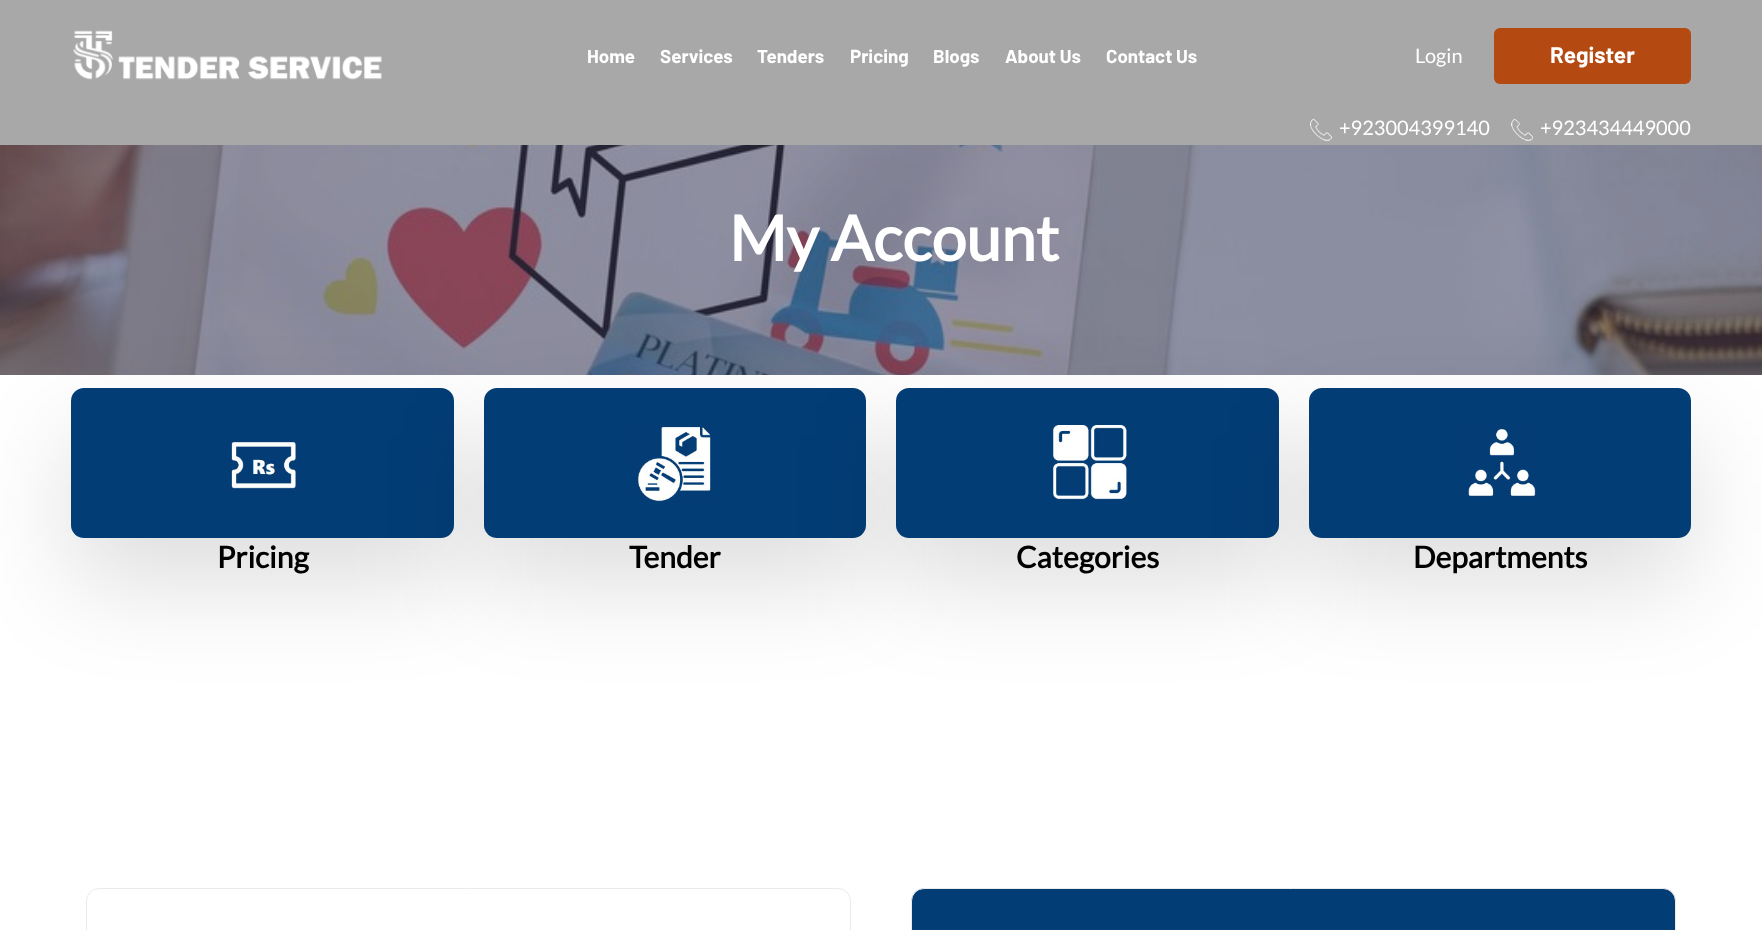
(async () => {
const canvas = document.querySelector("canvas")
canvas.width = 1762
canvas.height = 930
const c = canvas.getContext("2d")
c.miterLimit = 4
c.fontKerning = "normal"
function T(s,x,y){c.fillText(s,x,y)}
function R(x,y,w,h){c.fillRect(x,y,w,h)}
function Q(x,y,w,h,r){c.beginPath();c.roundRect(x,y,w,h,r);c.fill()}
async function I(src,x,y,w,h){const img=new Image();img.src=src;await img.decode();c.drawImage(img,x,y,w,h)}
c.fillStyle="#fff"
R(0,0,1762,930)
c.fillStyle="#a8a8a8"
R(0,0,1762,145)
await I("1.png",73,30,309,50)
c.font="bold 18.75px Barlow"
c.fillStyle="#fff"
T("Home",587,63)
T("Services",660,63)
T("Tenders",757,63)
T("Pricing",850,63)
T("Blogs",933,63)
T("About Us",1005,63)
T("Contact Us",1106,63)
c.font="20px Lato"
T("Login",1415,63)
c.fillStyle="#b44a11"
Q(1494,28,197,56,6)
c.font="bold 22.5px Barlow"
c.fillStyle="#fff"
T("Register",1550,63)
await I("2.png",1310,118,22,23)
c.font="20px Lato"
T("+923004399140",1339,135)
await I("3.png",1511,119,23,22)
T("+923434449000",1540,135)
await I("4.png",0,145,1762,230)
c.font="bold 62.5px Lato"
T("My Account",729,261)
c.fillStyle="#00000021"
c.filter="blur(49.5px)"
c.beginPath()
c.roundRect(71,434,383,150,13)
c.fill()
c.filter="none"
c.fillStyle="#033d75"
Q(71,388,383,150,13)
await I("5.png",228,440,72,52)
c.font="bold 30px Lato"
c.fillStyle="#000"
T("Pricing",217,568)
c.fillStyle="#00000021"
c.filter="blur(49.5px)"
c.beginPath()
c.roundRect(484,434,382,150,13)
c.fill()
c.filter="none"
c.fillStyle="#033d75"
Q(484,388,382,150,13)
await I("6.png",635,425,77,77)
c.fillStyle="#000"
T("Tender",629,568)
c.fillStyle="#00000021"
c.filter="blur(49.5px)"
c.beginPath()
c.roundRect(896,434,383,150,13)
c.fill()
c.filter="none"
c.fillStyle="#033d75"
Q(896,388,383,150,13)
await I("7.png",1053,425,77,76)
c.fillStyle="#000"
T("Categories",1016,568)
c.fillStyle="#00000021"
c.filter="blur(49.5px)"
c.beginPath()
c.roundRect(1309,434,382,150,13)
c.fill()
c.filter="none"
c.fillStyle="#033d75"
Q(1309,388,382,150,13)
await I("8.png",1465,425,72,72)
c.fillStyle="#000"
T("Departments",1413,568)
c.beginPath()
c.roundRect(86.5,888.5,764,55,12.5)
c.strokeStyle="#ebebeb"
c.stroke()
c.fillStyle="#033d75"
c.beginPath()
c.roundRect(911.5,888.5,764,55,12.5)
c.fill()
c.stroke()
})()
